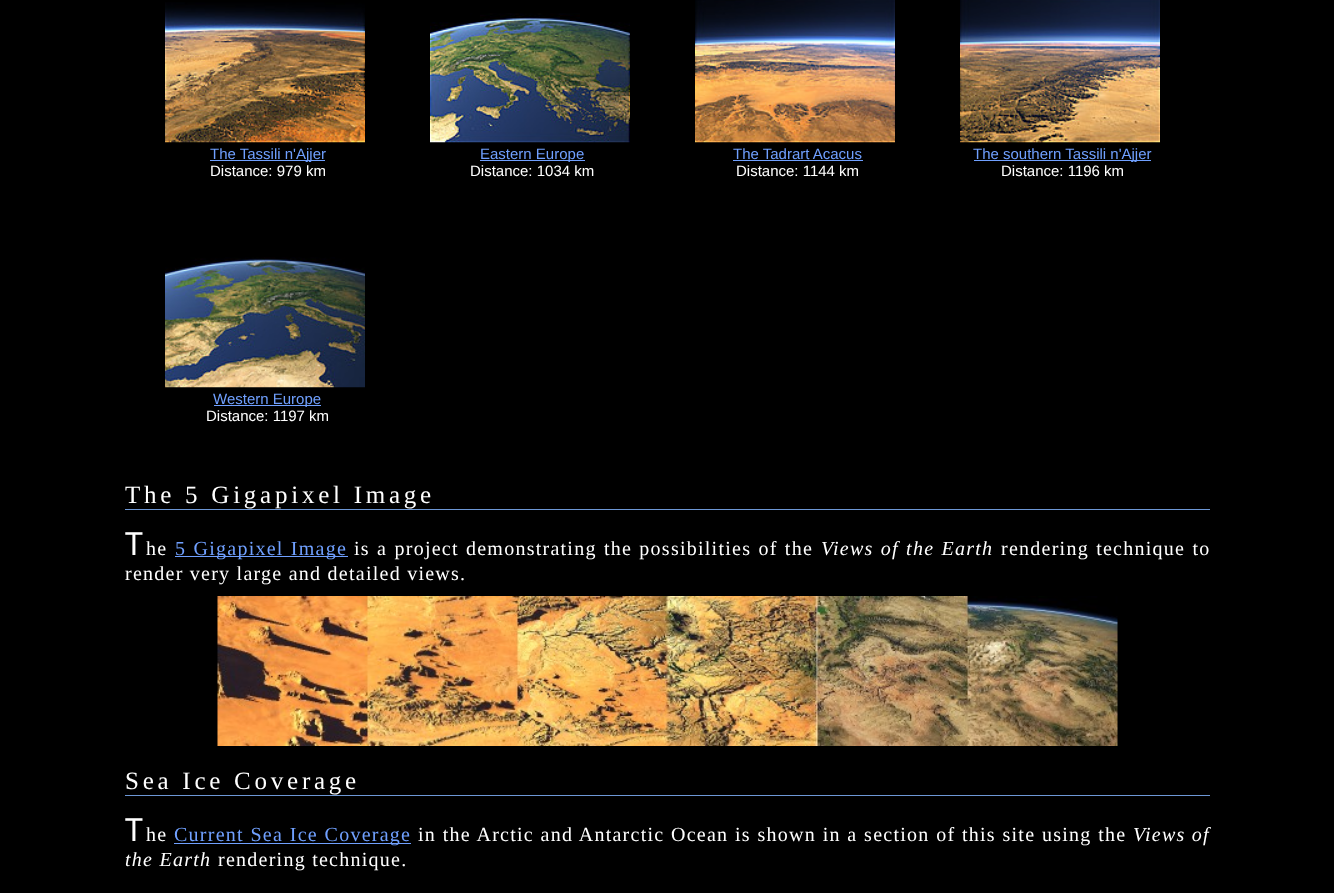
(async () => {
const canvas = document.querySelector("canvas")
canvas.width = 1334
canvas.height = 893
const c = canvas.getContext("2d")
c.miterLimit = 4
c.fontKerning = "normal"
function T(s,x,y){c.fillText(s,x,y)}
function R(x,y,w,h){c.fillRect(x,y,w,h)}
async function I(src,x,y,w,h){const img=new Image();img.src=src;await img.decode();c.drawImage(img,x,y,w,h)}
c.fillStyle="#000"
R(0,0,1334,893)
await I("1.png",165,2,200,141)
c.fillStyle="#70a0ff"
R(210,160,115,1)
c.font="15px Liberation Sans"
T("The Tassili n'Ajjer",210,159)
c.fillStyle="#fff"
T("Distance: 979 km",210,176)
await I("2.png",430,13,200,130)
c.fillStyle="#70a0ff"
R(480,160,105,1)
T("Eastern Europe",480,159)
c.fillStyle="#fff"
T("Distance: 1034 km",470,176)
await I("3.png",695,0,200,143)
c.fillStyle="#70a0ff"
T("The Tadrart Acacus",733,159)
R(733,160,130,1)
c.fillStyle="#fff"
T("Distance: 1144 km",736,176)
await I("4.png",960,0,200,143)
c.fillStyle="#70a0ff"
R(974,160,177,1)
T("The southern Tassili n'Ajjer",973,159)
c.fillStyle="#fff"
T("Distance: 1196 km",1001,176)
await I("5.png",165,257,200,131)
c.fillStyle="#70a0ff"
R(214,405,107,1)
T("Western Europe",213,404)
c.fillStyle="#fff"
T("Distance: 1197 km",206,421)
c.fillStyle="#6d97d5"
R(125,509,1085,1)
c.letterSpacing="3.75px"
c.font="25px Liberation Serif"
c.fillStyle="#fff"
T("The 5 Gigapixel Image",125,503)
c.letterSpacing="1.25px"
c.font="32px Noto Sans"
T("T",125,555)
c.font="20px Liberation Serif"
T("he",146,555)
c.fillStyle="#70a0ff"
R(175,556,173,1)
c.wordSpacing="1px"
T("5 Gigapixel Image",175,555)
c.fillStyle="#fff"
T("is a project demonstrating the possibilities of the",354,555)
c.font="italic 20px Liberation Serif"
T("Views of the Earth",821,555)
c.font="20px Liberation Serif"
T("rendering technique to",1001,555)
c.wordSpacing="0px"
T("render very large and detailed views.",125,580)
await I("6.png",217,596,901,150)
c.fillStyle="#6d97d5"
R(125,795,1085,1)
c.letterSpacing="3.75px"
c.font="25px Liberation Serif"
c.fillStyle="#fff"
T("Sea Ice Coverage",125,789)
c.letterSpacing="1.25px"
c.font="32px Noto Sans"
T("T",125,841)
c.font="20px Liberation Serif"
T("he",146,841)
c.fillStyle="#70a0ff"
R(174,843,237,1)
c.wordSpacing="0.4px"
T("Current Sea Ice Coverage",174,841)
c.fillStyle="#fff"
T("in the Arctic and Antarctic Ocean is shown in a section of this site using the",418,841)
c.wordSpacing="0px"
c.font="italic 20px Liberation Serif"
T("Views of",1133,841)
T("the Earth",125,866)
c.font="20px Liberation Serif"
T("rendering technique.",218,866)
})()
